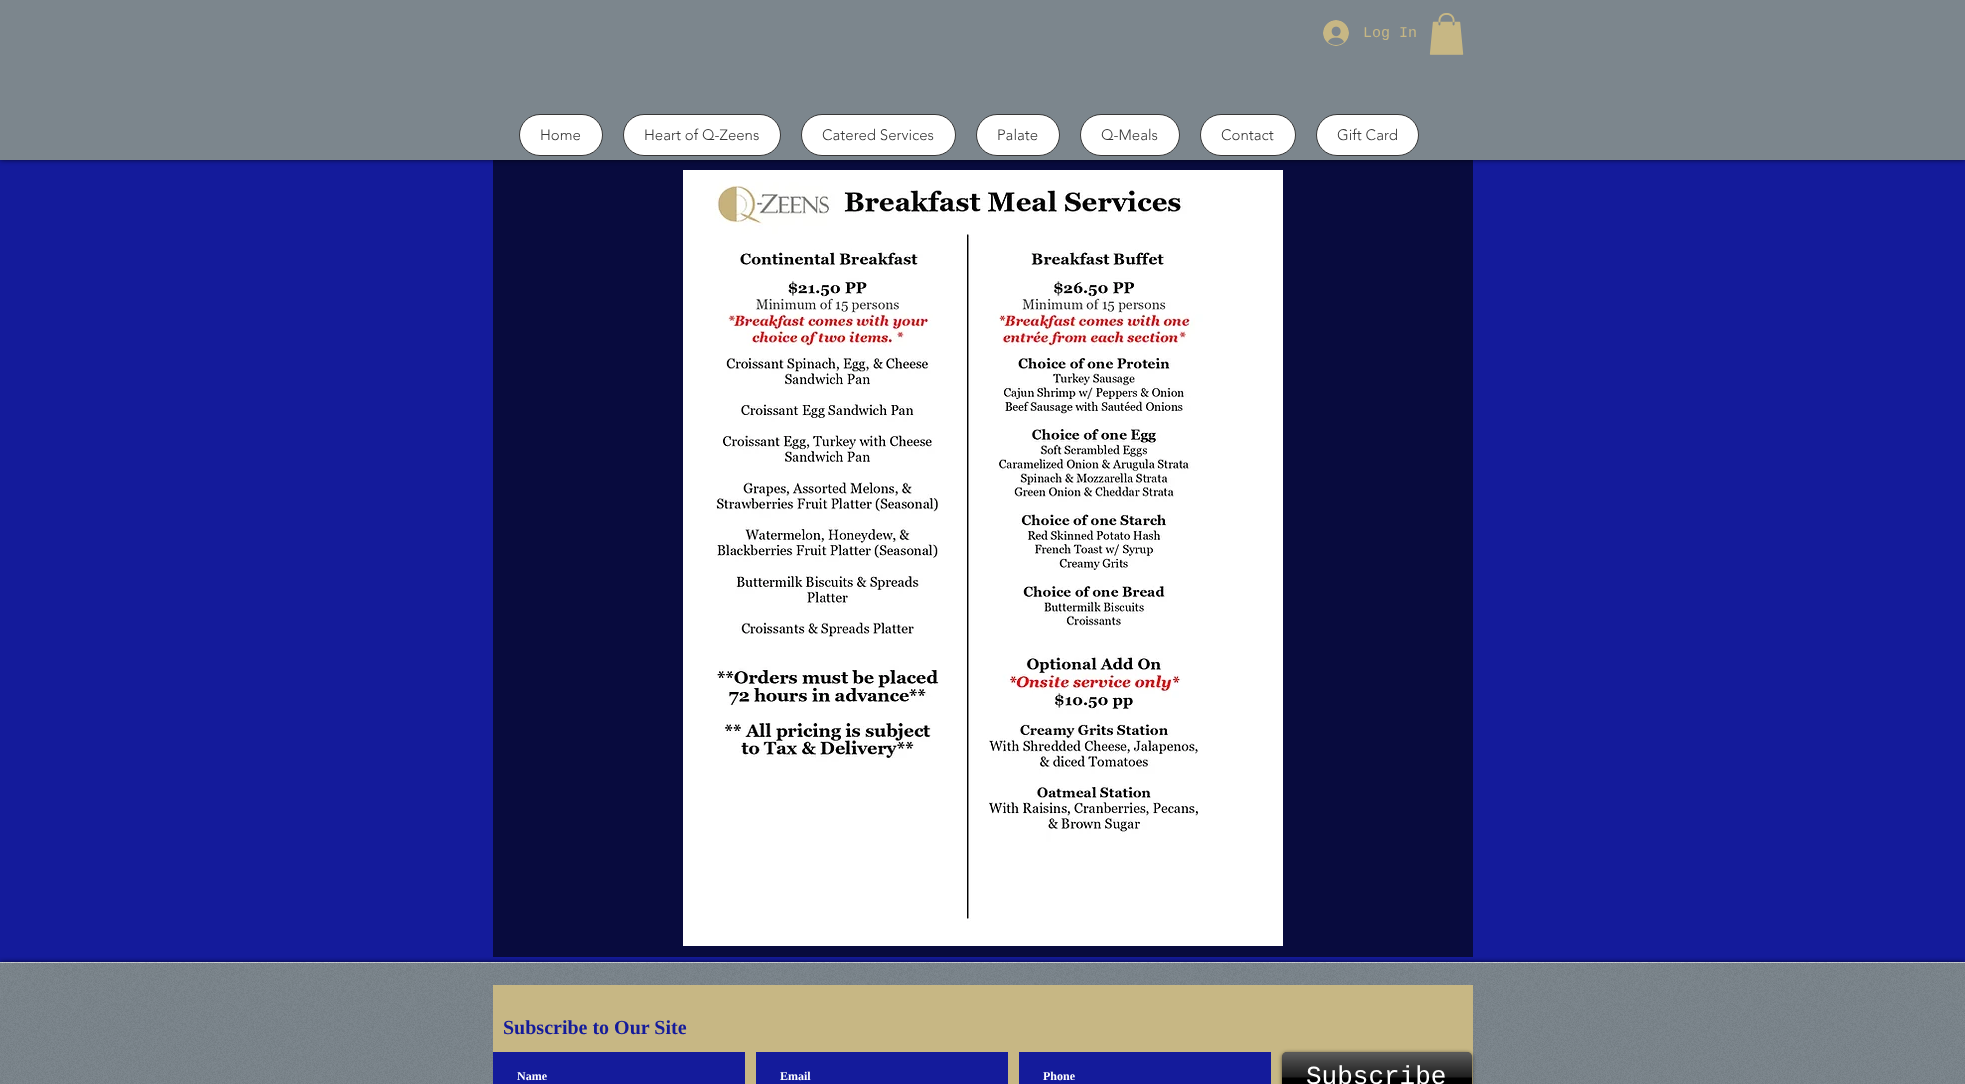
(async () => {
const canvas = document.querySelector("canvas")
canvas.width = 1965
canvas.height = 1084
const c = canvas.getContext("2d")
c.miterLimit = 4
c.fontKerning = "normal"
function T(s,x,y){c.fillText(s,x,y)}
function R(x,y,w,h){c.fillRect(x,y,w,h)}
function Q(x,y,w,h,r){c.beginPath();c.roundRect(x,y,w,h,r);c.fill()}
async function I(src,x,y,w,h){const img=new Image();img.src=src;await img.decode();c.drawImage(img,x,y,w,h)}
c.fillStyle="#141b9b"
R(0,0,1965,1084)
c.fillStyle="#080b3e"
R(493,160,980,797)
c.fillStyle="#000000b3"
c.filter="blur(2.5px)"
c.beginPath()
c.rect(0,0,1965,160)
c.fill()
c.filter="none"
c.fillStyle="#7c868d"
R(0,0,1965,160)
await I("1.png",1323,20,26,26)
c.font="15px Liberation Mono"
c.fillStyle="#c7b784"
T("Log In",1363,37)
await I("2.png",1429,13,35,42)
c.fillStyle="#fff"
c.beginPath()
c.roundRect(519.5,114.5,83,41,20.5)
c.fill()
c.strokeStyle="#383838"
c.stroke()
c.font="300 15px 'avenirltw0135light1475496'"
c.fillStyle="#383838"
T("Home",540,140)
c.fillStyle="#fff"
c.beginPath()
c.roundRect(623.5,114.5,157,41,20.5)
c.fill()
c.stroke()
c.fillStyle="#383838"
T("Heart of Q-Zeens",644,140)
c.fillStyle="#fff"
c.beginPath()
c.roundRect(801.5,114.5,154,41,20.5)
c.fill()
c.stroke()
c.fillStyle="#383838"
T("Catered Services",822,140)
c.fillStyle="#fff"
c.beginPath()
c.roundRect(976.5,114.5,83,41,20.5)
c.fill()
c.stroke()
c.fillStyle="#383838"
T("Palate",997,140)
c.fillStyle="#fff"
c.beginPath()
c.roundRect(1080.5,114.5,99,41,20.5)
c.fill()
c.stroke()
c.fillStyle="#383838"
T("Q-Meals",1101,140)
c.fillStyle="#fff"
c.beginPath()
c.roundRect(1200.5,114.5,95,41,20.5)
c.fill()
c.stroke()
c.fillStyle="#383838"
T("Contact",1221,140)
c.fillStyle="#fff"
c.beginPath()
c.roundRect(1316.5,114.5,102,41,20.5)
c.fill()
c.stroke()
c.fillStyle="#383838"
T("Gift Card",1337,140)
await I("3.png",683,170,600,776)
c.fillStyle="#7c868d"
R(0,963,1965,121)
c.fillStyle="#caced0"
R(0,962,1965,1)
c.save()
c.beginPath()
c.rect(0,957,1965,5)
c.clip()
c.fillStyle="#000000b3"
c.filter="blur(2.5px)"
c.beginPath()
c.rect(0,962,1965,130)
c.fill()
c.filter="none"
c.restore()
await I("4.png",0,962,1965,122)
c.fillStyle="#c7b784"
R(493,985,980,99)
c.font="bold 20px Liberation Serif"
c.fillStyle="#141b9b"
T("Subscribe to Our Site",503,1034)
R(493,1052,252,32)
c.font="bold 12px Liberation Serif"
c.fillStyle="#fff"
T("Name",517,1080)
c.fillStyle="#141b9b"
R(756,1052,252,32)
c.fillStyle="#fff"
T("Email",780,1080)
c.fillStyle="#141b9b"
R(1019,1052,252,32)
c.fillStyle="#fff"
T("Phone",1043,1080)
c.fillStyle="#00000099"
c.filter="blur(2px)"
c.beginPath()
c.roundRect(1282,1053,190,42,5)
c.fill()
c.filter="none"
c.fillStyle="#000"
Q(1282,1052,190,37,5)
await I("5.png",1282,1052,190,26)
c.font="26px Liberation Mono"
c.fillStyle="#fff"
T("Subscribe",1306,1084)
})()
